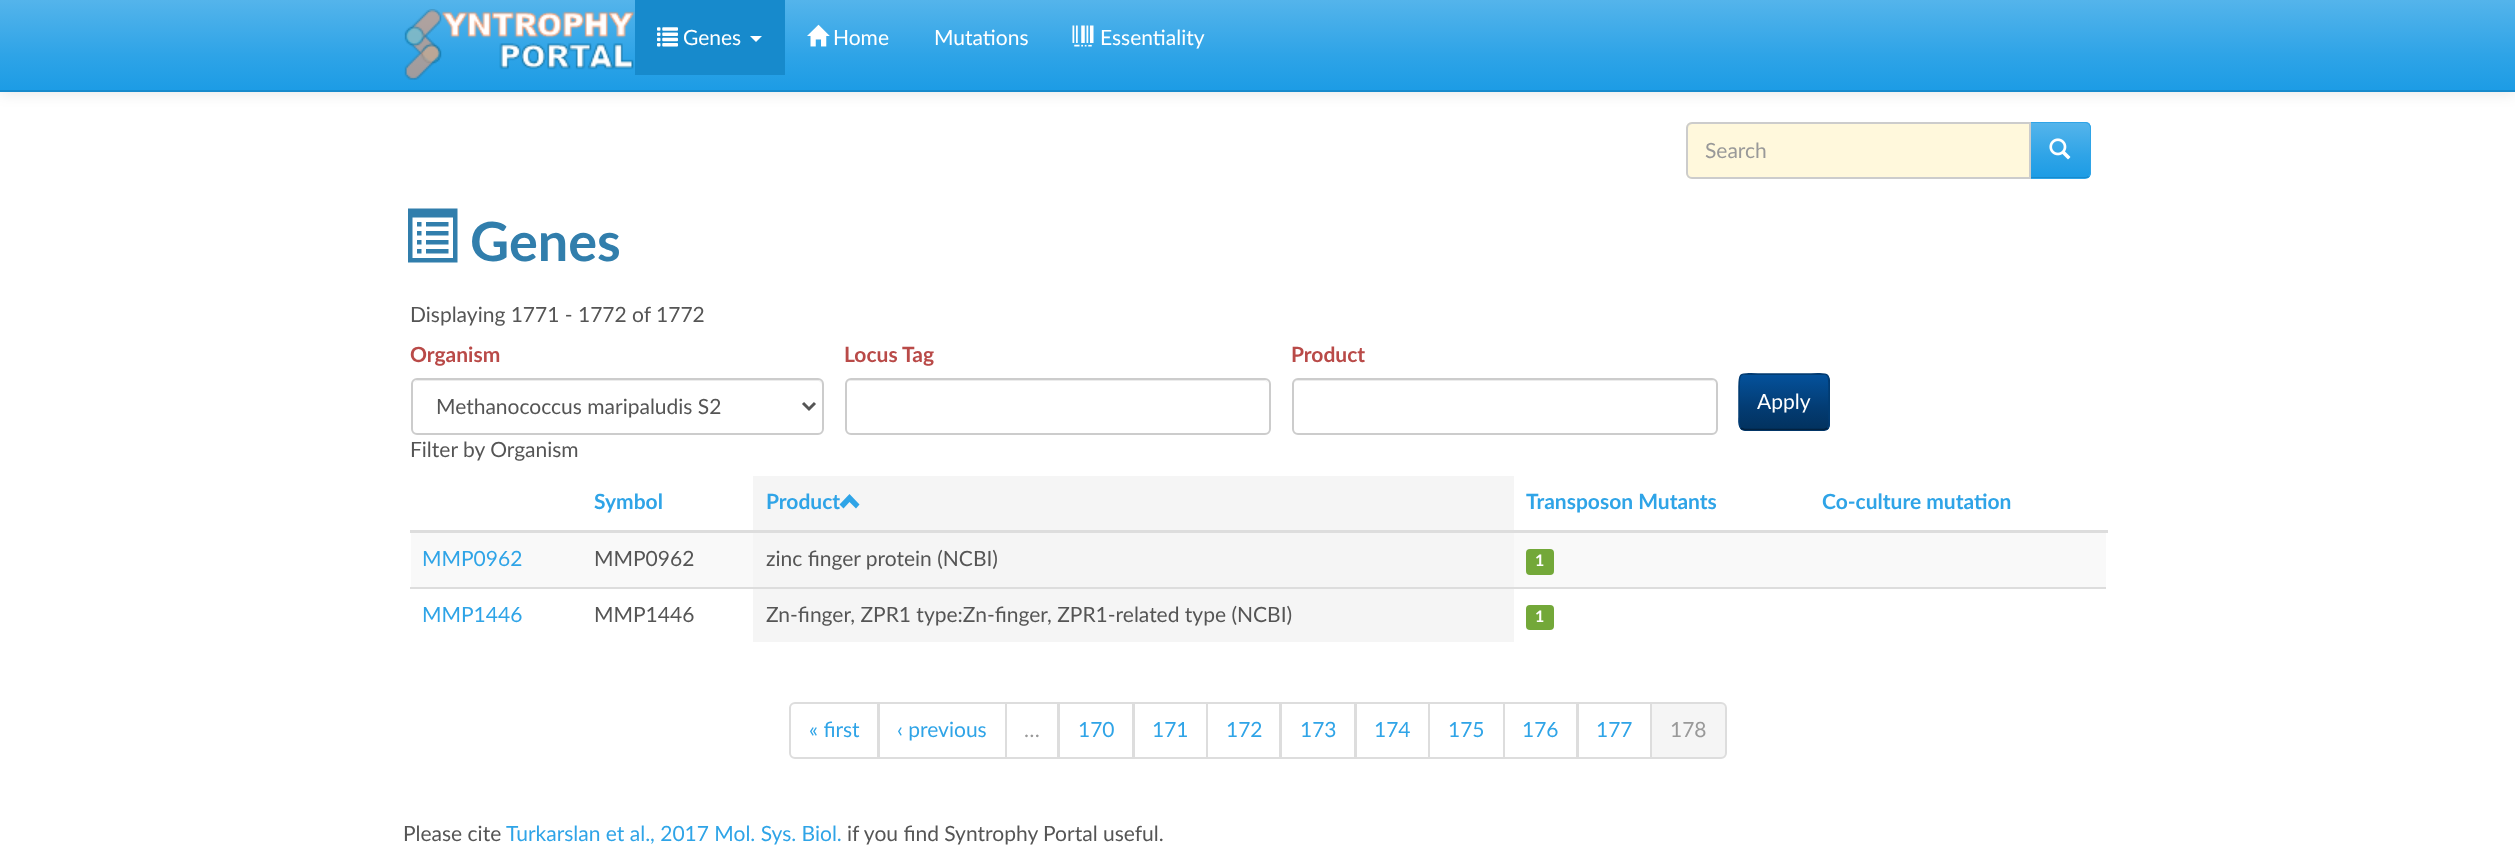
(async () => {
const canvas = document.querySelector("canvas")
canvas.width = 2515
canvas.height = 850
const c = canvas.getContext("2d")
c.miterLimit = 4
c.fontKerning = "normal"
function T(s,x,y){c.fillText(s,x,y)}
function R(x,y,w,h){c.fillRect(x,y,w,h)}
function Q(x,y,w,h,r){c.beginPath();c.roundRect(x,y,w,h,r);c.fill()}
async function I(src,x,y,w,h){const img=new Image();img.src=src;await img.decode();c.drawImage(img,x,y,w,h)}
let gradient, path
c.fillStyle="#fff"
R(0,0,2515,850)
c.fillStyle="#0000001a"
c.filter="blur(7.5px)"
c.beginPath()
c.rect(0,2,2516,91)
c.fill()
c.filter="none"
gradient = c.createLinearGradient(1258,0,1258,90)
gradient.addColorStop(0,"#54b4eb")
gradient.addColorStop(.6,"#2fa4e7")
gradient.addColorStop(1,"#1d9ce5")
c.fillStyle = gradient
R(0,0,2515,90)
c.fillStyle="#178acc"
R(0,90,2515,2)
await I("1.png",404,9,231,71)
R(635,0,150,75)
await I("2.png",657,27,21,20)
c.font="21px Lato"
c.fillStyle="#fff"
T("Genes",683,45)
path = new Path2D("M750 36h12l-6 6z")
c.fill(path)
await I("3.png",807,24,23,23)
T("Home",833,45)
T("Mutations",934,45)
await I("4.png",1072,25,22,22)
T("Essentiality",1100,45)
c.fillStyle="#2fa4e7"
c.beginPath()
c.roundRect(2030,122,61,57,[0,6,6,0])
c.fill()
c.save()
c.beginPath()
c.roundRect(2030,122,61,57,[0,6,6,0])
c.clip()
gradient = c.createLinearGradient(2060,123,2060,177)
gradient.addColorStop(0,"#54b4eb")
gradient.addColorStop(.6,"#2fa4e7")
gradient.addColorStop(1,"#1d9ce5")
c.fillStyle = gradient
R(2031,123,59,54)
c.restore()
path = new Path2D("M2030 122l1 1h54c1 0 2 0 3 1l1-1c-1-1-3-1-4-1z")
c.fill(path)
path = new Path2D("M2089 123c1 1 2 3 2 5v44c0 2-1 4-2 5l-1-1c1-1 2-2 2-4v-44c0-2-1-3-2-4z")
c.fill(path)
c.fillStyle="#178acc"
path = new Path2D("M2089 177c-1 1-3 1-4 1h-55l1-1h54c1 0 2 0 3-1z")
c.fill(path)
c.fillStyle="#fff8dc"
c.beginPath()
c.roundRect(1686,122,345,57,[6,0,0,6])
c.fill()
c.fillStyle="#ece5cc"
path = new Path2D("M1692 124h338v-1h-337c-3 0-5 3-5 6c0-2 2-5 4-5z")
c.fill(path)
c.beginPath()
c.roundRect(1687,123,343,55,[5,0,0,5])
c.strokeStyle="#ccc"
c.lineWidth=2
c.stroke()
c.fillStyle="#999"
T("Search",1705,158)
await I("5.png",2049,138,22,22)
await I("6.png",408,208,50,55)
c.font="bold 54px Lato"
c.fillStyle="#317eac"
T("Genes",470,261)
c.font="21px Lato"
c.fillStyle="#555"
T("Displaying 1771 - 1772 of 1772",410,322)
c.font="bold 21px Lato"
c.fillStyle="#b94a48"
T("Organism",410,362)
c.fillStyle="#ececec"
path = new Path2D("M417 381h401c2 0 4 2 4 5v-1c0-3-2-5-5-5h-399c-2 0-3 1-4 2z")
c.fill(path)
c.beginPath()
c.roundRect(412,379,411,55,5)
c.stroke()
path = new Path2D("M803 403l6 6l6-6")
c.strokeStyle="#555"
c.lineWidth=3
c.stroke(path)
c.font="21px Lato"
c.fillStyle="#555"
T("Methanococcus maripaludis S2",436,414)
T("Filter by Organism",410,457)
c.font="bold 21px Lato"
c.fillStyle="#b94a48"
T("Locus Tag",844,362)
c.fillStyle="#ececec"
path = new Path2D("M850 381h414c3 0 5 2 5 5c0-3-2-6-5-6h-413c-3 0-5 3-5 6c0-3 2-5 4-5z")
c.fill(path)
c.beginPath()
c.roundRect(846,379,424,55,5)
c.strokeStyle="#ccc"
c.lineWidth=2
c.stroke()
c.fillStyle="#b94a48"
T("Product",1291,362)
c.fillStyle="#ececec"
path = new Path2D("M1298 381h414c2 0 4 2 4 5c0-3-2-6-5-6h-413c-3 0-5 3-5 6c0-3 2-5 5-5z")
c.fill(path)
c.beginPath()
c.roundRect(1293,379,424,55,5)
c.stroke()
c.fillStyle="#033c73"
Q(1739,374,91,57,6)
c.save()
c.beginPath()
c.roundRect(1739,374,91,57,6)
c.clip()
gradient = c.createLinearGradient(1784,375,1784,429)
gradient.addColorStop(0,"#04519b")
gradient.addColorStop(.6,"#033c73")
gradient.addColorStop(1,"#02325f")
c.fillStyle = gradient
R(1740,375,89,54)
c.restore()
path = new Path2D("M1827.5 428l-3 1.5h-80.5l-3-1.5")
c.strokeStyle="#022241"
c.lineWidth=1.5
c.stroke(path)
path = new Path2D("M1741 428c-3-2.5-2-8-2-11v-30c0-16 1.5-13 19-13h53c17 0 18-3 18 13v30c0 3 1.5 8.5-1.5 11")
c.strokeStyle="#033c73"
c.stroke(path)
c.font="21px Lato"
c.fillStyle="#fff"
T("Apply",1757,409)
c.font="bold 21px Lato"
c.fillStyle="#2fa4e7"
T("Symbol",594,509)
c.fillStyle="#f5f5f5"
R(753,476,761,54)
c.fillStyle="#2fa4e7"
T("Product",766,509)
path = new Path2D("M839.5 504.5l4 4l6-6.5l6.5 6.5l3.5-4l-10-10.5z")
c.fill(path)
T("Transposon Mutants",1526,509)
c.fillStyle="#ddd"
R(410,530,1698,3)
c.fillStyle="#2fa4e7"
T("Co-culture mutation",1822,509)
c.fillStyle="#f9f9f9"
R(411,533,342,54)
c.font="21px Lato"
c.fillStyle="#2fa4e7"
T("MMP0962",422,566)
c.fillStyle="#555"
T("MMP0962",594,566)
c.fillStyle="#f5f5f5"
R(753,533,761,54)
c.fillStyle="#555"
T("zinc finger protein (NCBI)",766,566)
c.fillStyle="#f9f9f9"
R(1514,533,592,54)
c.fillStyle="#73a839"
Q(1526,549,28,26,4)
c.font="bold 16px Lato"
c.fillStyle="#fff"
T("1",1535,566)
c.fillStyle="#ddd"
R(410,587,1696,2)
c.font="21px Lato"
c.fillStyle="#2fa4e7"
T("MMP1446",422,622)
c.fillStyle="#555"
T("MMP1446",594,622)
c.fillStyle="#f5f5f5"
R(753,589,761,53)
c.fillStyle="#555"
T("Zn-finger, ZPR1 type:Zn-finger, ZPR1-related type (NCBI)",766,622)
c.fillStyle="#73a839"
Q(1526,605,28,25,4)
c.font="bold 16px Lato"
c.fillStyle="#fff"
T("1",1535,622)
c.beginPath()
c.roundRect(790,703,88,55,[5,0,0,5])
c.strokeStyle="#ddd"
c.lineWidth=2
c.stroke()
c.font="21px Lato"
c.fillStyle="#2fa4e7"
T("« first",809,737)
c.strokeRect(879,703,127,55)
T("‹ previous",897,737)
c.strokeRect(1006,703,52,55)
c.fillStyle="#999"
T("…",1024,737)
c.strokeRect(1059,703,74,55)
c.fillStyle="#2fa4e7"
T("170",1078,737)
c.strokeRect(1134,703,73,55)
T("171",1152,737)
c.strokeRect(1207,703,73,55)
T("172",1226,737)
c.strokeRect(1281,703,74,55)
T("173",1300,737)
c.strokeRect(1356,703,73,55)
T("174",1374,737)
c.strokeRect(1429,703,75,55)
T("175",1448,737)
c.strokeRect(1504,703,73,55)
T("176",1522,737)
c.strokeRect(1578,703,73,55)
T("177",1596,737)
c.fillStyle="#f5f5f5"
c.beginPath()
c.roundRect(1651,703,75,55,[0,5,5,0])
c.fill()
c.stroke()
c.fillStyle="#999"
T("178",1670,737)
c.fillStyle="#555"
T("Please cite",403,841)
c.fillStyle="#2fa4e7"
T("Turkarslan et al., 2017 Mol. Sys. Biol.",506,841)
c.fillStyle="#555"
T("if you find Syntrophy Portal useful.",847,841)
})()
